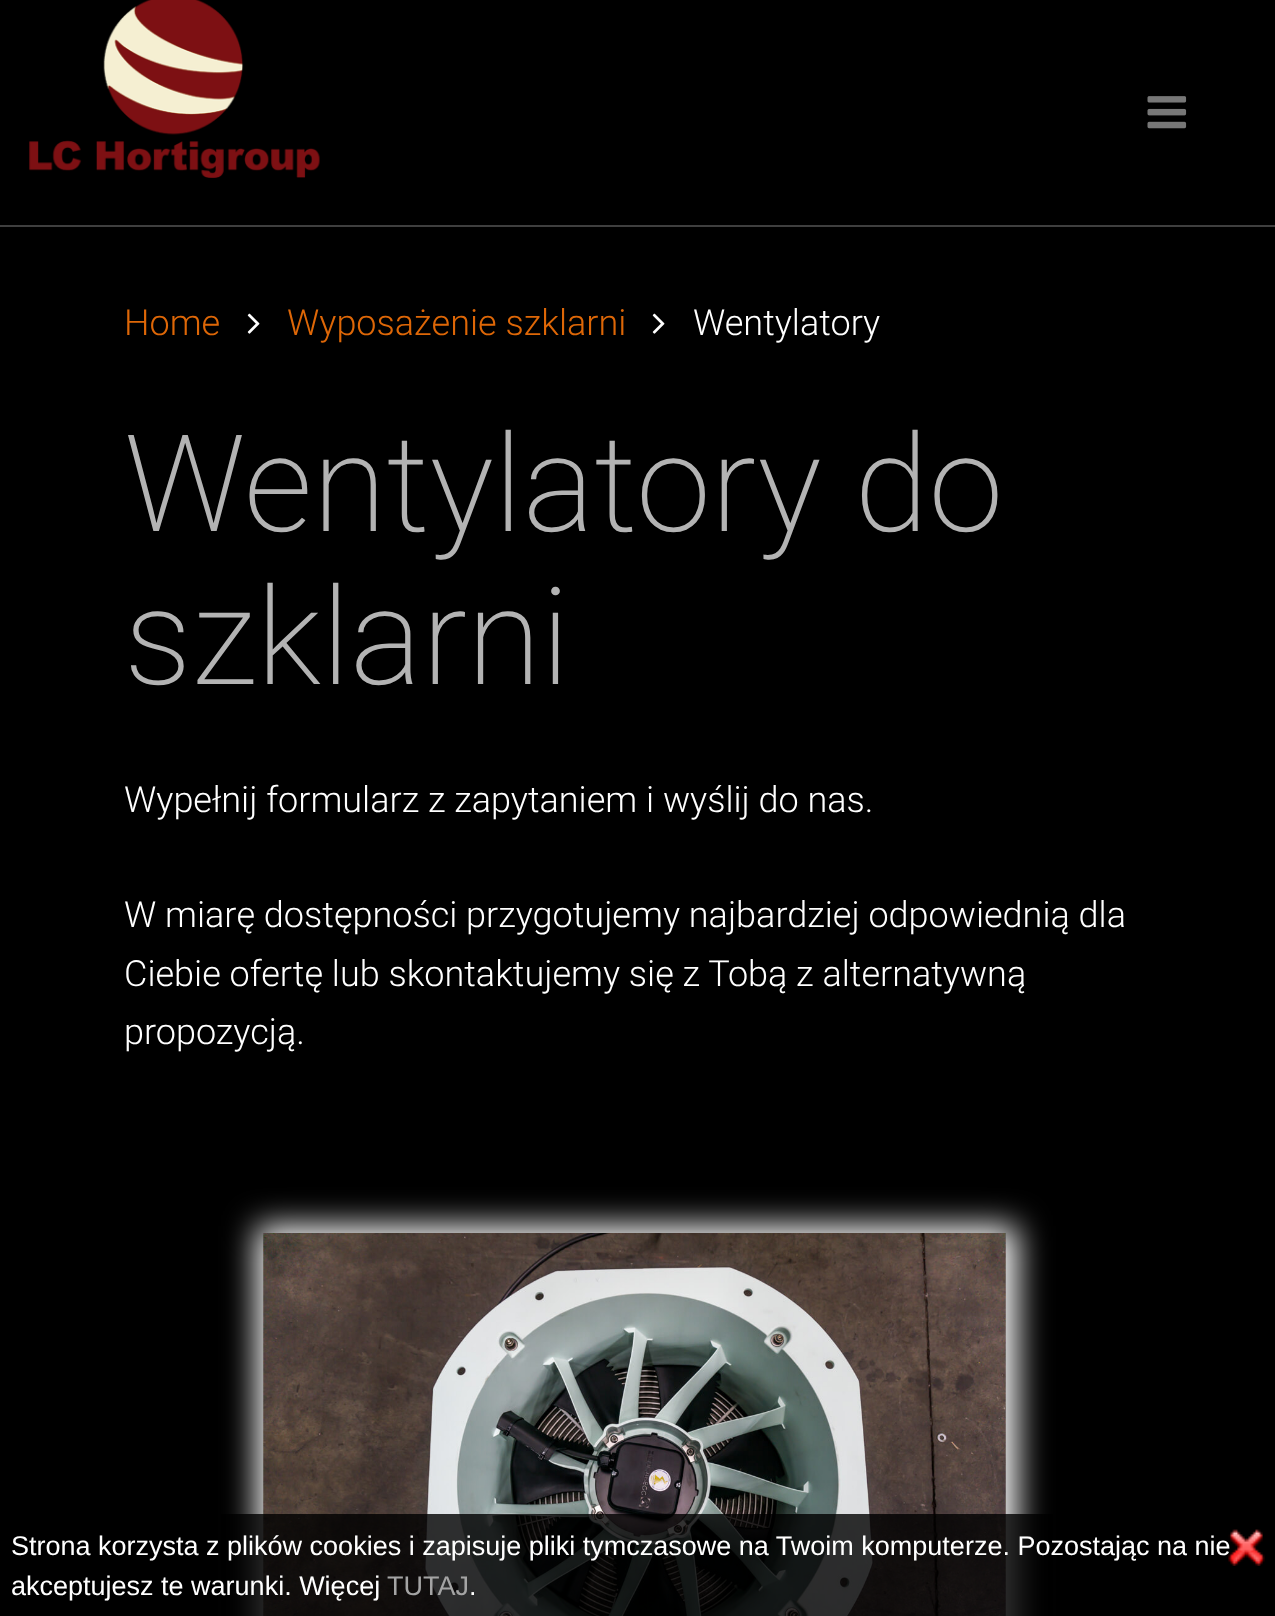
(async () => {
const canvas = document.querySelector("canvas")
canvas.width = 1275
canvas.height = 1616
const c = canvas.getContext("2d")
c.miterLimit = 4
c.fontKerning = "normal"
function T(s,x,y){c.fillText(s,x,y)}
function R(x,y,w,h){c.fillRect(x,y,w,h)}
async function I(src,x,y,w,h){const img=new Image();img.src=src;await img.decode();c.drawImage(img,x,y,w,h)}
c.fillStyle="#000"
R(0,0,1275,1616)
await I("1.png",29,0,291,178)
await I("2.png",1147,96,40,33)
c.fillStyle="#3f3f3f"
R(0,225,1275,2)
c.font="300 36px Roboto"
c.fillStyle="#de6707"
T("Home",124,335)
await I("3.png",247,313,13,21)
T("Wyposażenie szklarni",287,335)
await I("3.png",652,313,13,21)
c.fillStyle="#fff"
T("Wentylatory",693,335)
c.font="200 135px Roboto"
c.fillStyle="#b3b3b3"
T("Wentylatory do",124,531)
T("szklarni",124,684)
c.font="300 36px Roboto"
c.fillStyle="#fff"
T("Wypełnij formularz z zapytaniem i wyślij do nas.",124,812)
T("W miarę dostępności przygotujemy najbardziej odpowiednią dla",124,927)
T("Ciebie ofertę lub skontaktujemy się z Tobą z alternatywną",124,986)
T("propozycją.",124,1044)
c.filter="blur(16px)"
c.beginPath()
c.rect(257,1226,760,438)
c.fill()
c.filter="none"
await I("4.png",263,1233,743,383)
c.fillStyle="#000000cc"
R(221,1514,832,102)
c.font="27px Liberation Sans"
c.fillStyle="#fff"
T("Strona korzysta z plików cookies i zapisuje pliki tymczasowe na Twoim komputerze. Pozostając na nie",11,1555)
T("akceptujesz te warunki. Więcej",11,1595)
c.fillStyle="#a4a4a4"
T("TUTAJ",387,1595)
c.fillStyle="#fff"
T(".",469,1595)
await I("5.png",1228,1529,37,37)
})()
